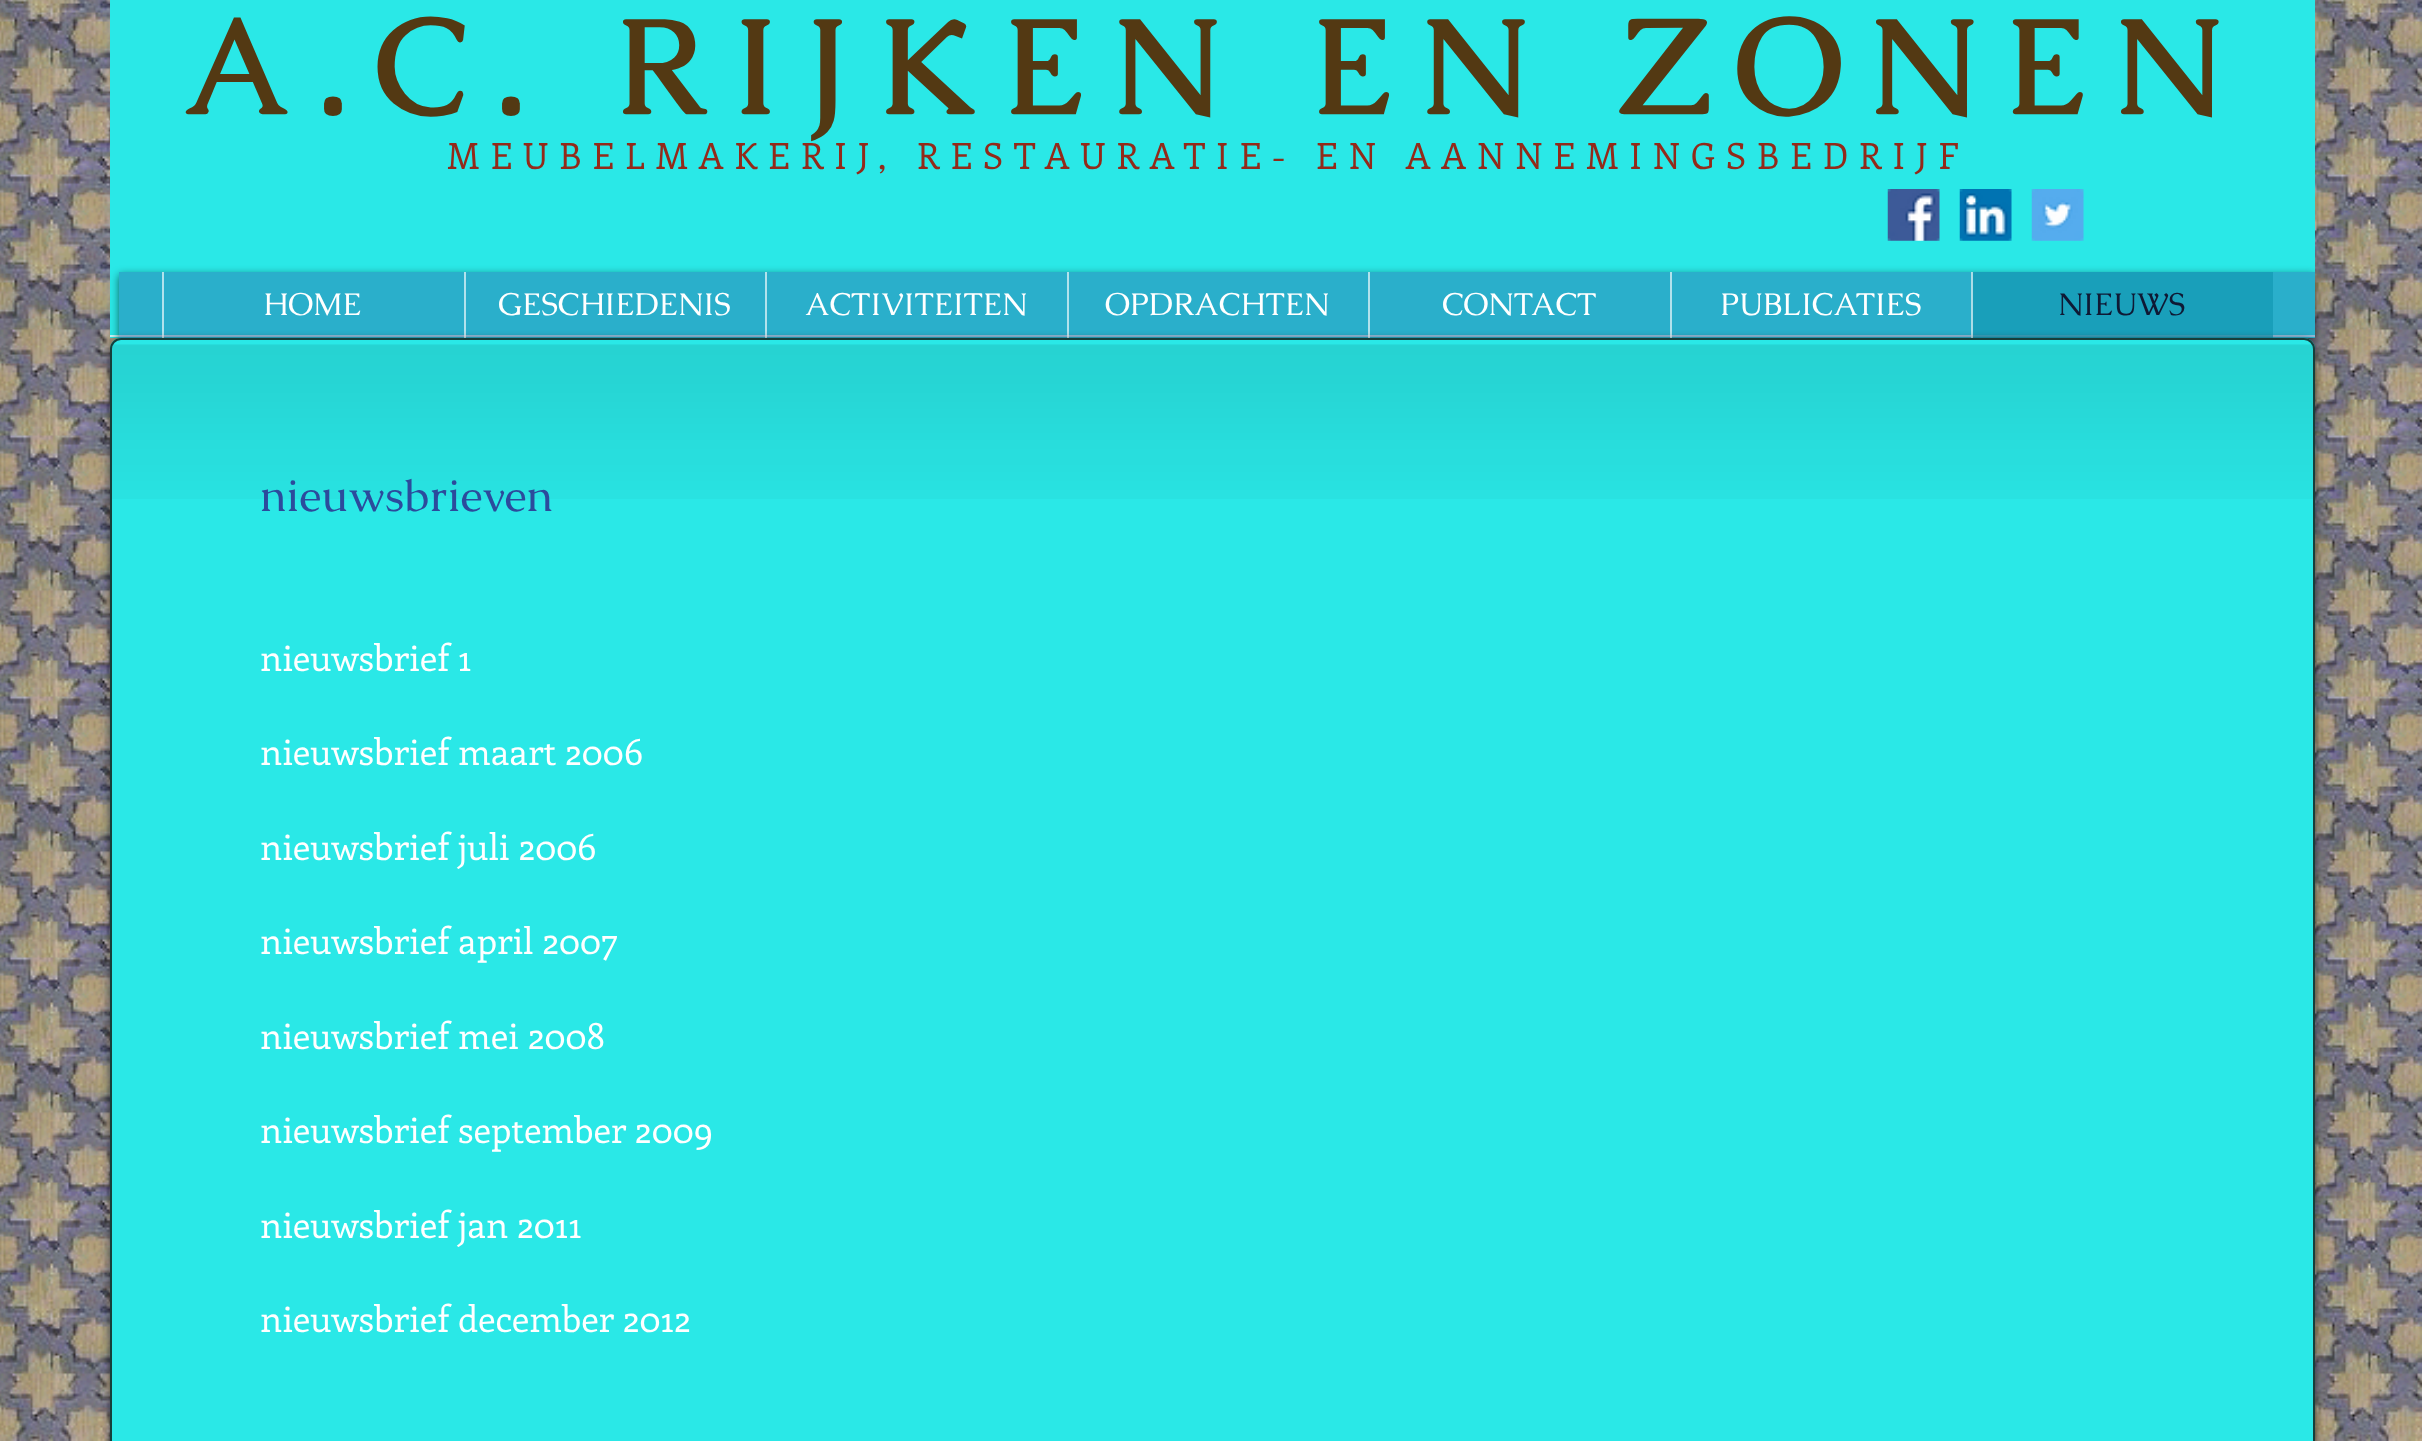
(async () => {
const canvas = document.querySelector("canvas")
canvas.width = 2422
canvas.height = 1441
const c = canvas.getContext("2d")
c.miterLimit = 4
c.fontKerning = "normal"
function T(s,x,y){c.fillText(s,x,y)}
function R(x,y,w,h){c.fillRect(x,y,w,h)}
function Q(x,y,w,h,r){c.beginPath();c.roundRect(x,y,w,h,r);c.fill()}
async function I(src,x,y,w,h){const img=new Image();img.src=src;await img.decode();c.drawImage(img,x,y,w,h)}
let path
c.fillStyle="#fff"
R(0,0,2422,1441)
await I("1.png",0,0,2422,1441)
c.fillStyle="#2ae8e7"
R(110,0,2205,338)
c.fillStyle="#caf9f9"
R(110,335,2205,2)
c.letterSpacing="27px"
c.font="bold 135px Caudex"
c.fillStyle="#533913"
T("A.C. RIJKEN EN ZONEN",184,113)
c.letterSpacing="10.8px"
c.font="36px Enriqueta"
c.fillStyle="#932a1a"
T("MEUBELMAKERIJ, RESTAURATIE- EN AANNEMINGSBEDRIJF",447,169)
await I("2.png",1887,189,53,52)
await I("3.png",1959,189,53,52)
await I("4.png",2031,189,53,52)
c.save()
path = new Path2D("M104 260h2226v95h-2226zm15 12h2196v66h-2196z")
c.clip(path,"evenodd")
c.fillStyle="#00000099"
c.filter="blur(4.5px)"
c.beginPath()
c.rect(119,275,2196,65)
c.fill()
c.filter="none"
c.restore()
c.fillStyle="#2c4b9c5c"
R(119,272,2196,66)
c.fillStyle="#ffffffa3"
R(162,272,2,66)
c.letterSpacing="0px"
c.font="31.5px Caudex"
c.fillStyle="#fff"
T("HOME",263,315)
c.fillStyle="#ffffffa3"
R(464,272,2,66)
c.fillStyle="#fff"
T("GESCHIEDENIS",498,315)
c.fillStyle="#ffffffa3"
R(765,272,2,66)
c.fillStyle="#fff"
T("ACTIVITEITEN",805,315)
c.fillStyle="#ffffffa3"
R(1067,272,2,66)
c.fillStyle="#fff"
T("OPDRACHTEN",1105,315)
c.fillStyle="#ffffffa3"
R(1368,272,2,66)
c.fillStyle="#fff"
T("CONTACT",1442,315)
c.fillStyle="#ffffffa3"
R(1670,272,2,66)
c.fillStyle="#fff"
T("PUBLICATIES",1720,315)
c.fillStyle="#1298b3ad"
R(1971,272,302,66)
c.fillStyle="#ffffffa3"
R(1971,272,2,66)
c.fillStyle="#0f1934"
T("NIEUWS",2058,315)
c.fillStyle="#00000099"
c.filter="blur(4.5px)"
c.beginPath()
c.roundRect(110,340,2205,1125,11)
c.fill()
c.filter="none"
c.fillStyle="#2ae8e7"
Q(110,338,2205,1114,11)
await I("5.png",110,344,2205,155)
c.beginPath()
c.roundRect(111,339,2203,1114,10)
c.strokeStyle="#163e3a"
c.lineWidth=2
c.stroke()
c.font="45px Caudex"
c.fillStyle="#2c4b9c"
T("nieuwsbrieven",260,511)
c.font="36px Enriqueta"
c.fillStyle="#fff"
T("nieuwsbrief 1",260,671)
T("nieuwsbrief maart 2006",260,765)
T("nieuwsbrief juli 2006",260,860)
T("nieuwsbrief april 2007",260,954)
T("nieuwsbrief mei 2008",260,1049)
T("nieuwsbrief september 2009",260,1143)
T("nieuwsbrief jan 2011",260,1238)
T("nieuwsbrief december 2012",260,1332)
})()
